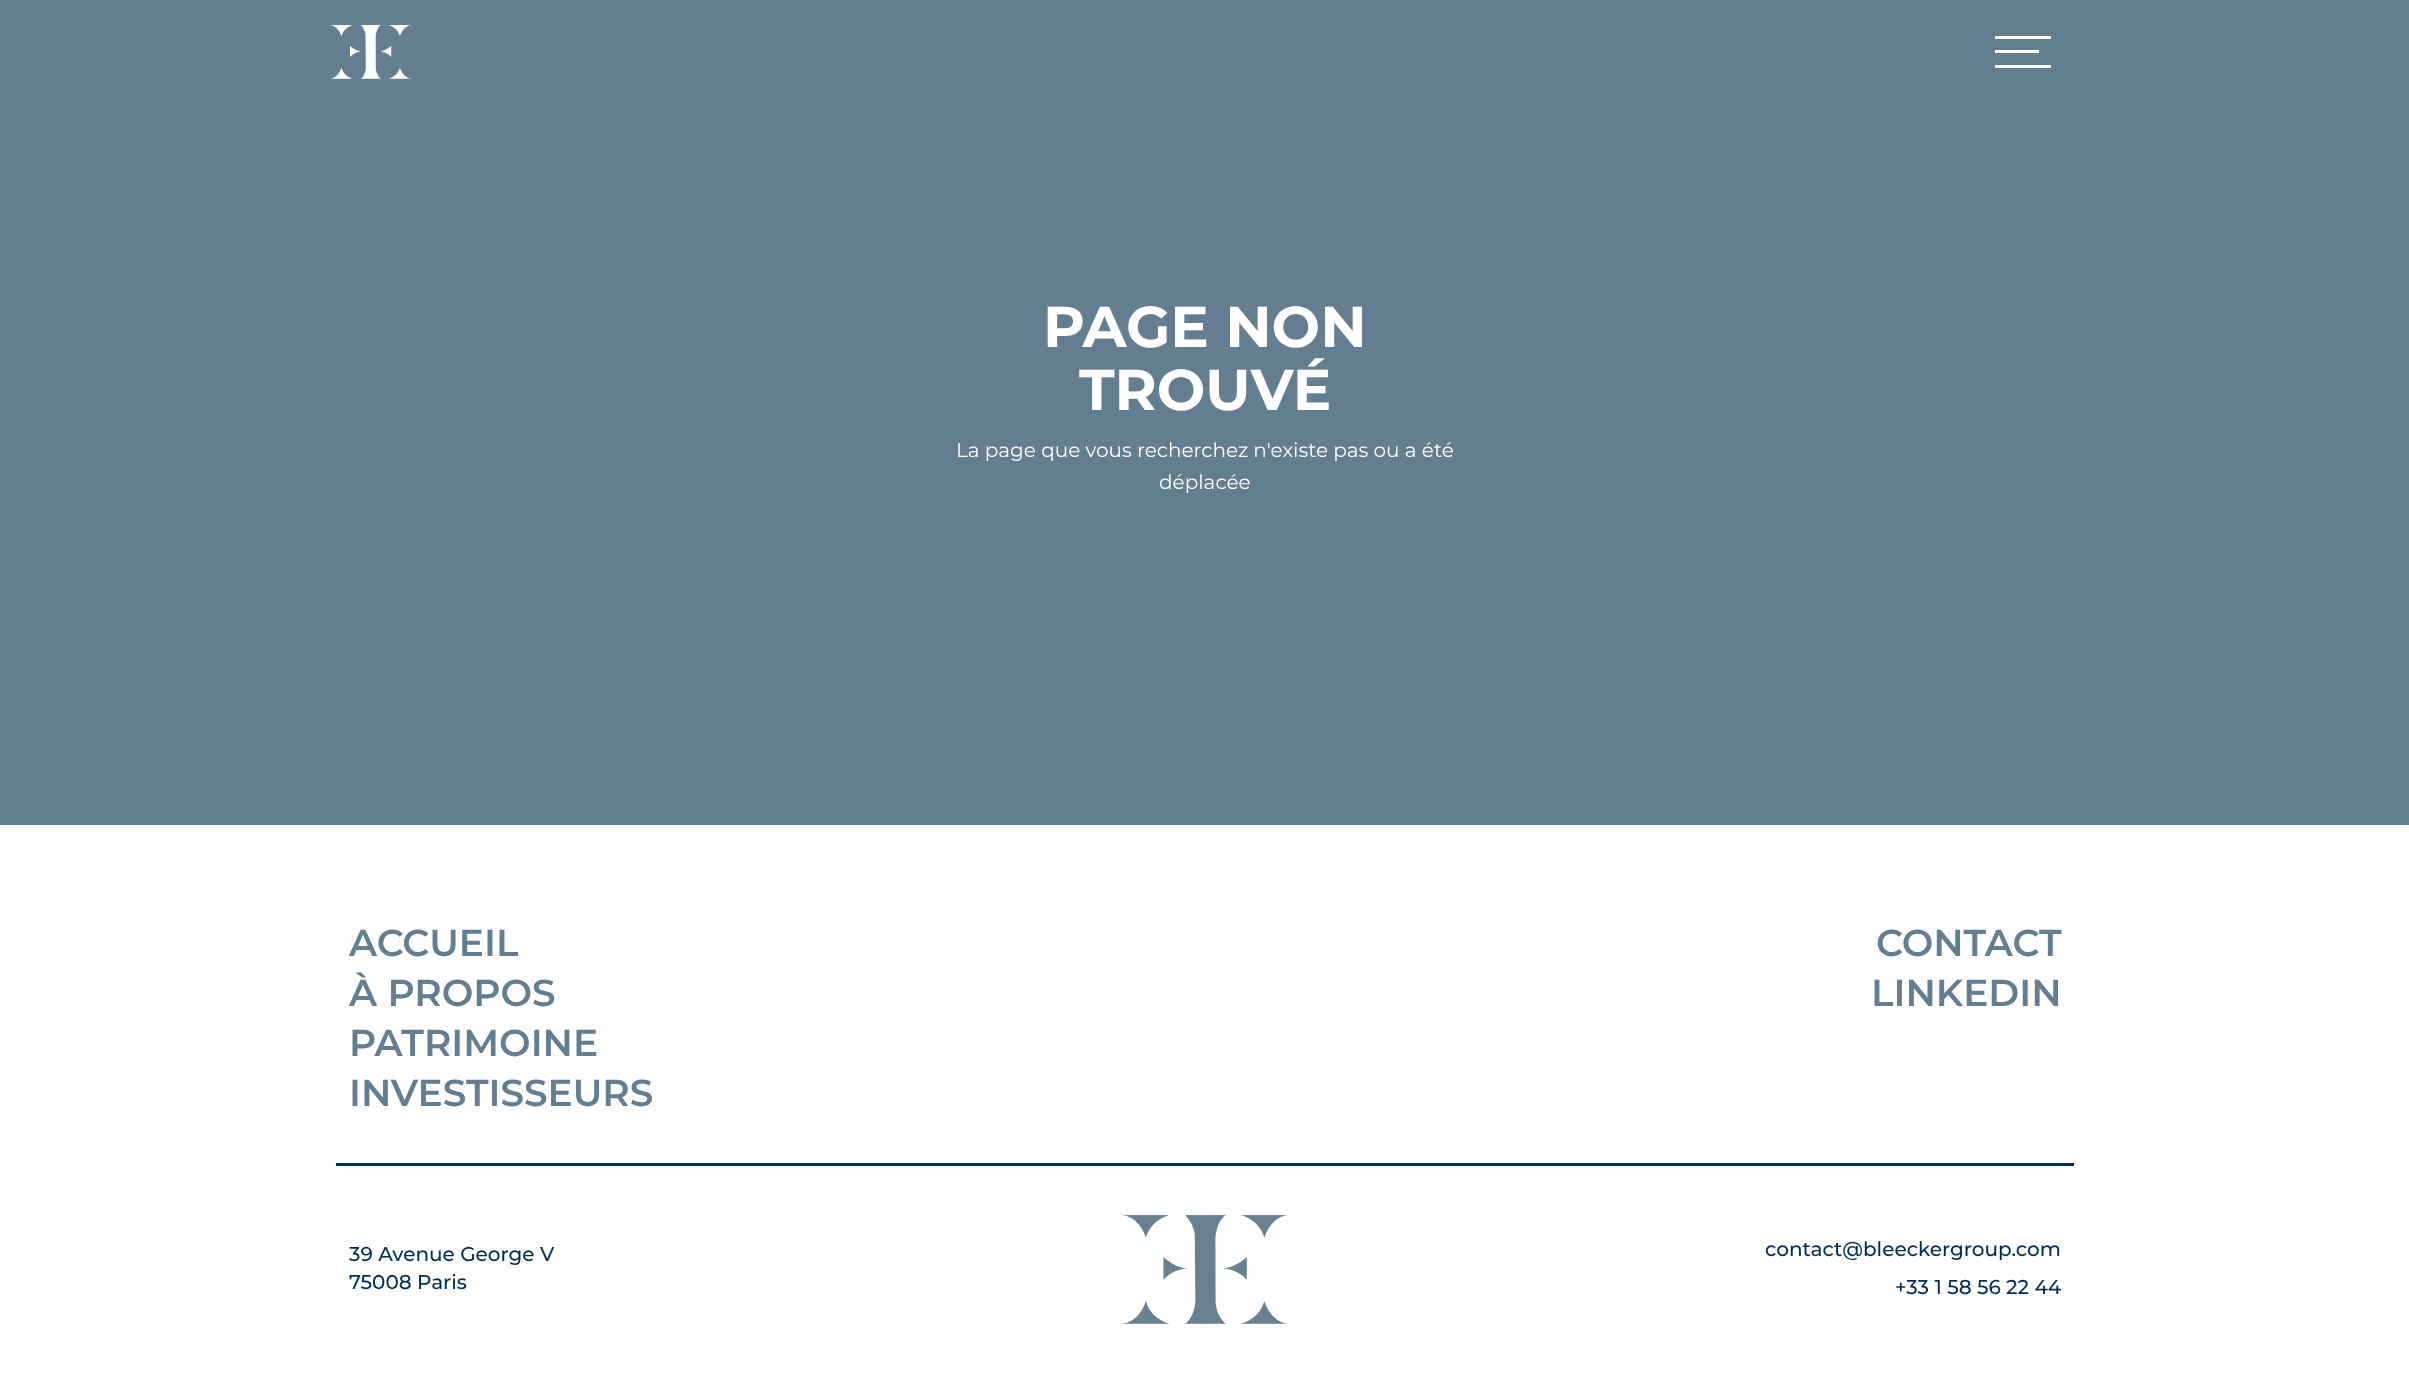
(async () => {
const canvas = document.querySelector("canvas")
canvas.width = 2409
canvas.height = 1375
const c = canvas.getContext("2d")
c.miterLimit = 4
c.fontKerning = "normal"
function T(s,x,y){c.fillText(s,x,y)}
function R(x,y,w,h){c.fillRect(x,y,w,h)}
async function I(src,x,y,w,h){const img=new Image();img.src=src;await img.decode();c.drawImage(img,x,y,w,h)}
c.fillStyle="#fff"
R(0,0,2409,1375)
c.fillStyle="#627e90"
R(0,0,2409,825)
await I("1.png",330,25,81,54)
c.fillStyle="#fff"
R(1995,36,56,3)
R(1995,50,44,3)
R(1995,65,56,3)
c.font="bold 57.5px Montserrat"
T("PAGE NON",1043,347)
T("TROUVÉ",1079,410)
c.font="20px Montserrat"
T("La page que vous recherchez n'existe pas ou a été",956,457)
T("déplacée",1159,489)
c.font="600 37.5px Montserrat"
c.fillStyle="#627e90"
T("ACCUEIL",349,956)
T("À PROPOS",349,1006)
T("PATRIMOINE",349,1056)
T("INVESTISSEURS",349,1106)
T("CONTACT",1876,956)
T("LINKEDIN",1871,1006)
c.fillStyle="#002d57"
R(336,1163,1738,3)
c.font="500 20px Montserrat"
T("39 Avenue George V",349,1261)
T("75008 Paris",349,1289)
await I("2.png",1122,1215,166,109)
T("contact@bleeckergroup.com",1765,1256)
T("+33 1 58 56 22 44",1895,1294)
})()
